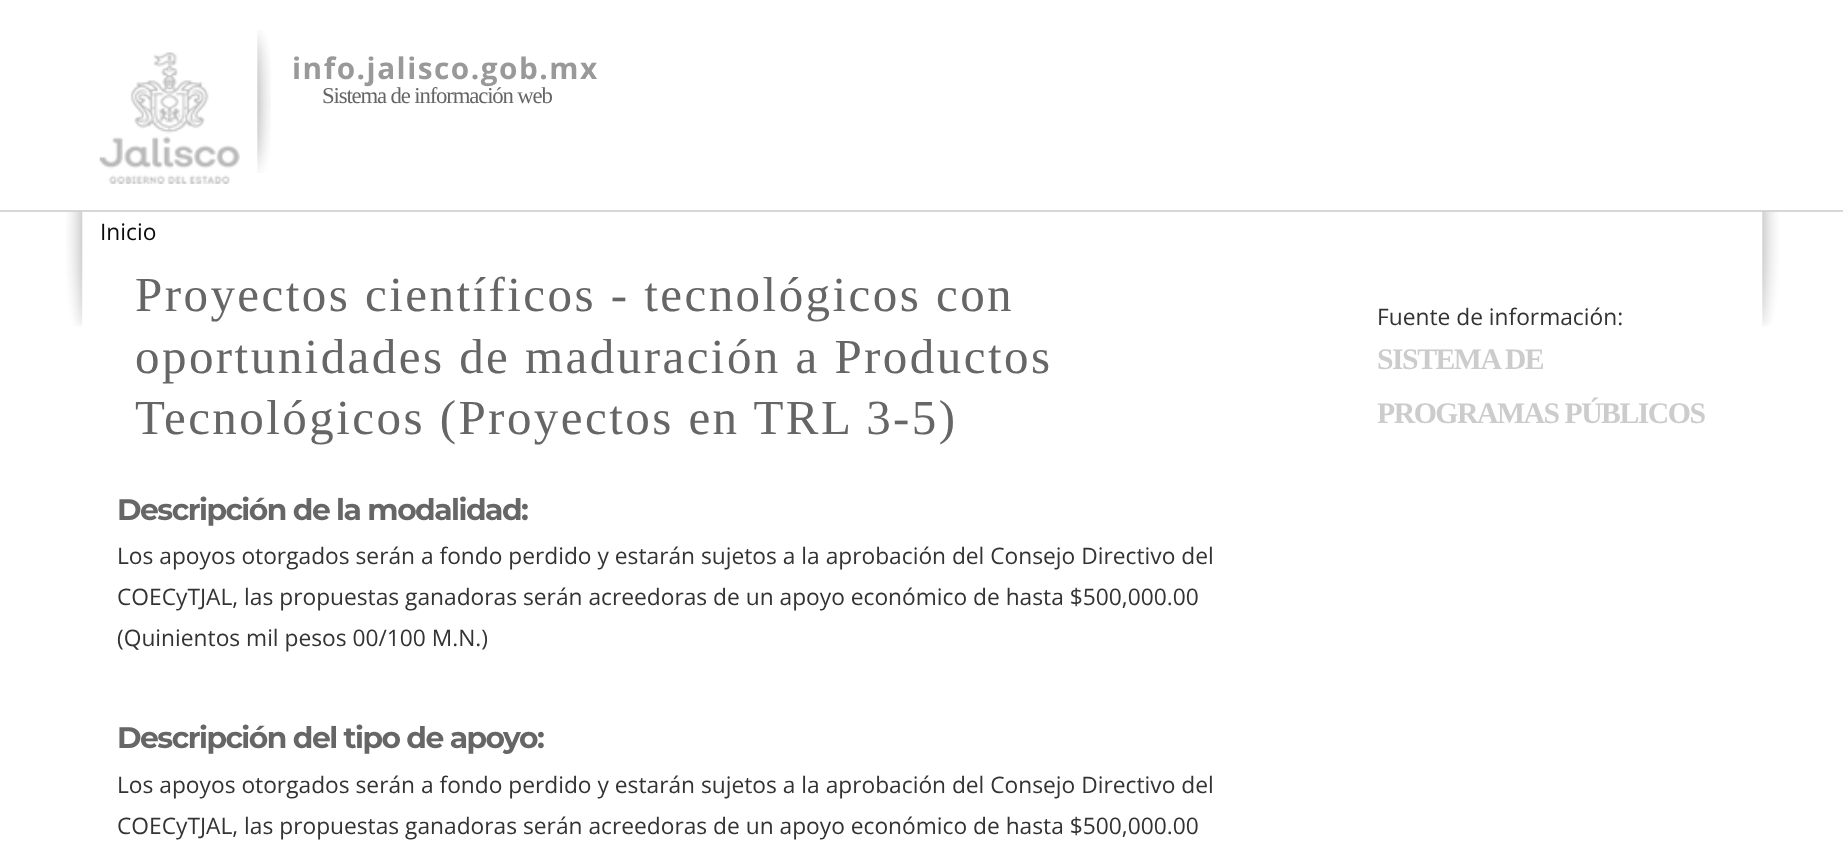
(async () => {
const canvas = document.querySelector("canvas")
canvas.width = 1843
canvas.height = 853
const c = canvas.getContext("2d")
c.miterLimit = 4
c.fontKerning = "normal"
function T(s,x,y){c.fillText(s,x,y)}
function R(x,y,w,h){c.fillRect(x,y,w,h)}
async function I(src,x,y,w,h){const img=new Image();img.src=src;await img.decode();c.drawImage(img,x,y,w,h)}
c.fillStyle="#fff"
R(0,0,1843,853)
await I("1.png",257,30,14,143)
await I("2.png",99,52,141,132)
c.letterSpacing="1.5px"
c.font="bold 29.75px Open Sans"
c.fillStyle="#999"
T("info.jalisco.gob.mx",292,79)
c.letterSpacing="-1.15px"
c.font="22.75px Liberation Serif"
c.fillStyle="#666"
T("Sistema de información web",322,103)
c.fillStyle="#d7d7d7"
R(0,210,1843,2)
await I("3.png",66,211,1713,116)
c.letterSpacing="0px"
c.font="22.75px Open Sans"
c.fillStyle="#0c0c0c"
T("Inicio",100,240)
c.letterSpacing="2.45px"
c.font="49px Liberation Serif"
c.fillStyle="#666"
T("Proyectos científicos - tecnológicos con",135,311)
T("oportunidades de maduración a Productos",135,373)
T("Tecnológicos (Proyectos en TRL 3-5)",135,434)
c.letterSpacing="-1.5px"
c.font="bold 29.75px Montserrat"
T("Descripción de la modalidad:",117,520)
c.letterSpacing="0px"
c.font="22.75px Open Sans"
c.fillStyle="#333"
T("Los apoyos otorgados serán a fondo perdido y estarán sujetos a la aprobación del Consejo Directivo del",117,564)
T("COECyTJAL, las propuestas ganadoras serán acreedoras de un apoyo económico de hasta $500,000.00",117,605)
T("(Quinientos mil pesos 00/100 M.N.)",117,646)
c.letterSpacing="-1.5px"
c.font="bold 29.75px Montserrat"
c.fillStyle="#666"
T("Descripción del tipo de apoyo:",117,748)
c.letterSpacing="0px"
c.font="22.75px Open Sans"
c.fillStyle="#333"
T("Los apoyos otorgados serán a fondo perdido y estarán sujetos a la aprobación del Consejo Directivo del",117,793)
T("COECyTJAL, las propuestas ganadoras serán acreedoras de un apoyo económico de hasta $500,000.00",117,834)
T("Fuente de información:",1377,325)
c.letterSpacing="-1.5px"
c.font="bold 29.75px Liberation Serif"
c.fillStyle="#ccc"
T("SISTEMA DE",1377,369)
T("PROGRAMAS PÚBLICOS",1377,423)
})()
